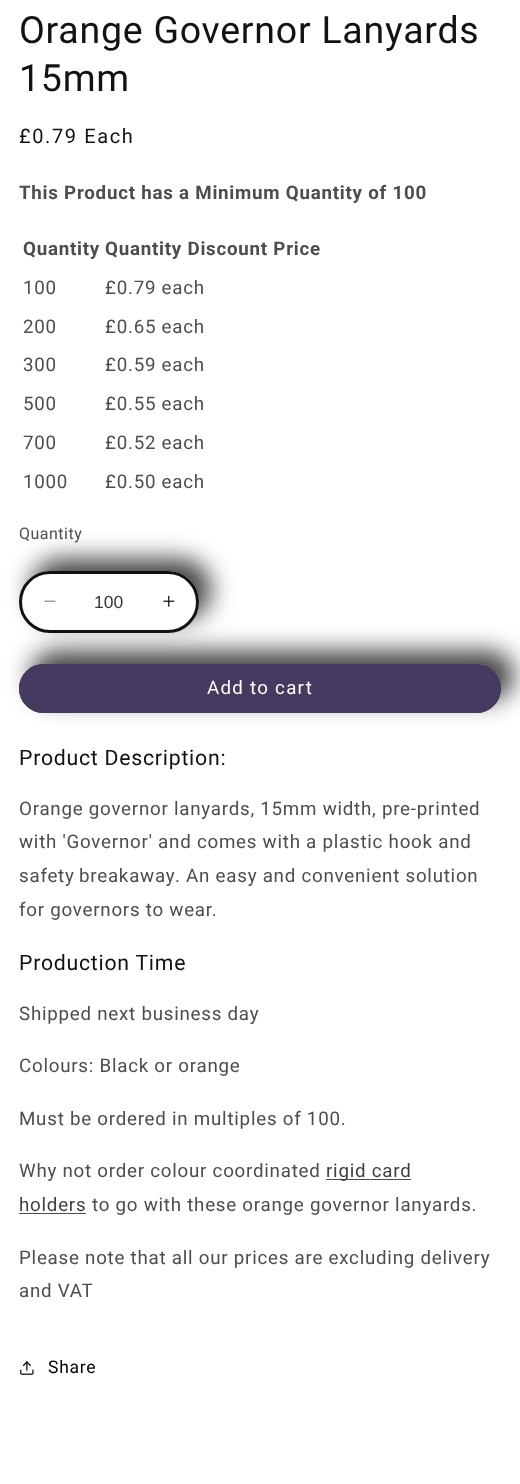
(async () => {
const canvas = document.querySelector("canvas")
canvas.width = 520
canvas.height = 1484
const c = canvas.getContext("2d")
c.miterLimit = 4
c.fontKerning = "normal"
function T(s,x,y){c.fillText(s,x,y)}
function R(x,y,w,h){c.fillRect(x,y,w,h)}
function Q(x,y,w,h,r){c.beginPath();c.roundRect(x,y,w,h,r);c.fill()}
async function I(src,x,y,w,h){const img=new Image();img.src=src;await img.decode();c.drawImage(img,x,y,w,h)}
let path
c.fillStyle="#fff"
R(0,0,520,1484)
c.letterSpacing="0.75px"
c.font="37.5px Roboto"
c.fillStyle="#121212"
T("Orange Governor Lanyards",19,43)
T("15mm",19,91)
c.letterSpacing="1.6px"
c.font="20px Roboto"
T("£0.79 Each",19,143)
c.letterSpacing="0.75px"
c.font="bold 18.75px Roboto"
c.fillStyle="#4d4d4d"
T("This Product has a Minimum Quantity of 100",19,199)
T("Quantity",23,255)
T("Quantity Discount Price",105,255)
c.font="18.75px Roboto"
T("100",23,294)
T("£0.79 each",105,294)
T("200",23,333)
T("£0.65 each",105,333)
T("300",23,371)
T("£0.59 each",105,371)
T("500",23,410)
T("£0.55 each",105,410)
T("700",23,449)
T("£0.52 each",105,449)
T("1000",23,488)
T("£0.50 each",105,488)
c.fillStyle="#000000bf"
c.filter="blur(12.5px)"
c.beginPath()
c.roundRect(31,559,180,61,30.5)
c.fill()
c.filter="none"
c.letterSpacing="0.5px"
c.font="16px Roboto"
c.fillStyle="#4d4d4d"
T("Quantity",19,539)
c.fillStyle="#fff"
Q(19,571,180,62,31)
await I("1.png",44,600,12,2)
await I("2.png",163,595,12,12)
c.fillStyle="#453a5f"
Q(19,664,482,49,24.5)
c.save()
path = new Path2D("M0 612h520v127h-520zm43.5 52h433c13.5 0 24.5 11 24.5 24.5c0 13.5-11 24.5-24.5 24.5h-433c-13.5 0-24.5-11-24.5-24.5c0-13.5 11-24.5 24.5-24.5z")
c.clip(path,"evenodd")
c.fillStyle="#000000bf"
c.filter="blur(12.5px)"
c.beginPath()
c.roundRect(31,651,483,49,24.5)
c.fill()
c.filter="none"
c.restore()
c.beginPath()
c.roundRect(20.5,572.5,177,59,29.5)
c.strokeStyle="#121212"
c.lineWidth=3
c.stroke()
c.letterSpacing="0px"
c.font="17.5px Liberation Sans"
c.fillStyle="#363636"
T("100",94,608)
c.beginPath()
c.roundRect(20.5,665.5,479,46,23)
c.strokeStyle="#453a5f"
c.stroke()
c.letterSpacing="1.25px"
c.font="18.75px Roboto"
c.fillStyle="#fff"
T("Add to cart",207,694)
c.letterSpacing="0.75px"
c.font="21.25px Roboto"
c.fillStyle="#121212"
T("Product Description:",19,765)
c.font="18.75px Roboto"
c.fillStyle="#4d4d4d"
T("Orange governor lanyards, 15mm width, pre-printed",19,815)
T("with 'Governor' and comes with a plastic hook and",19,848)
c.wordSpacing="-1px"
T("safety breakaway",19,882)
c.wordSpacing="0px"
T(". An easy and convenient solution",175,882)
T("for governors to wear.",19,916)
c.font="21.25px Roboto"
c.fillStyle="#121212"
T("Production Time",19,970)
c.font="18.75px Roboto"
c.fillStyle="#4d4d4d"
T("Shipped next business day",19,1020)
T("Colours: Black or orange",19,1072)
T("Must be ordered in multiples of 100.",19,1125)
T("Why not order colour coordinated",19,1177)
R(326,1179,85,1)
c.fillStyle="#3f3f3f"
T("rigid card",326,1177)
T("holders",19,1211)
c.fillStyle="#4d4d4d"
R(19,1213,67,1)
T("to go with these orange governor lanyards.",92,1211)
T("Please note that all our prices are excluding delivery",19,1264)
T("and VAT",19,1297)
await I("3.png",20,1361,14,14)
c.font="17.5px Roboto"
c.fillStyle="#000"
T("Share",48,1373)
})()
